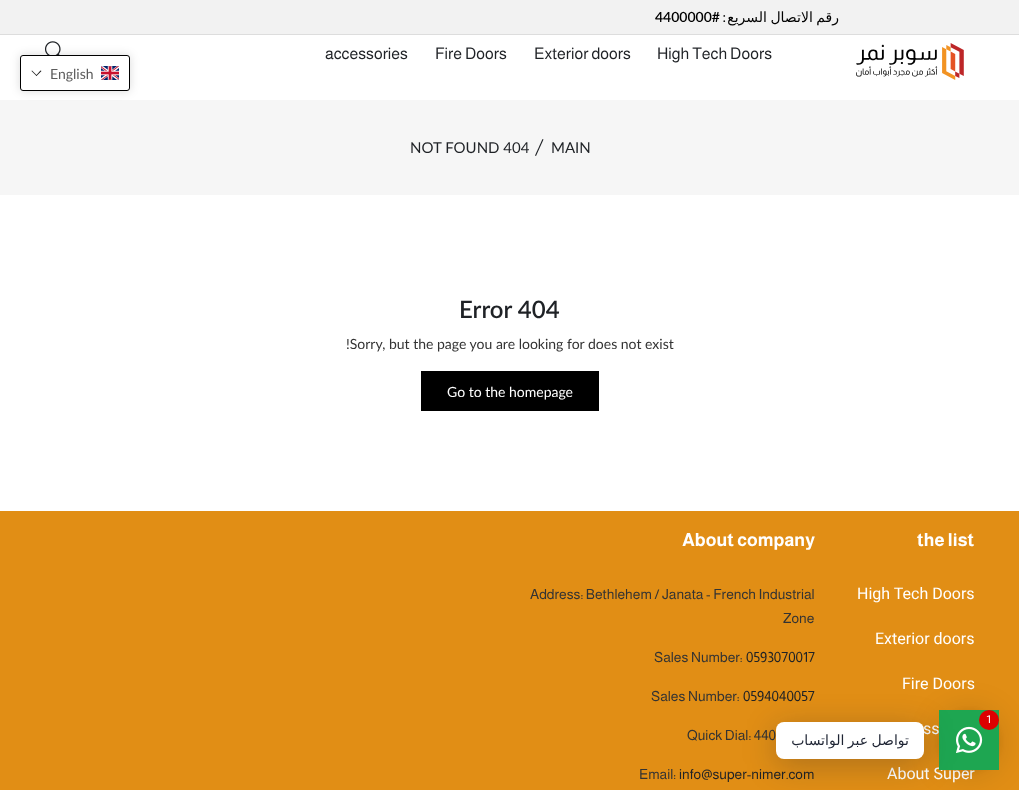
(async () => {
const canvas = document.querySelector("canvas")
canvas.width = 1019
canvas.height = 790
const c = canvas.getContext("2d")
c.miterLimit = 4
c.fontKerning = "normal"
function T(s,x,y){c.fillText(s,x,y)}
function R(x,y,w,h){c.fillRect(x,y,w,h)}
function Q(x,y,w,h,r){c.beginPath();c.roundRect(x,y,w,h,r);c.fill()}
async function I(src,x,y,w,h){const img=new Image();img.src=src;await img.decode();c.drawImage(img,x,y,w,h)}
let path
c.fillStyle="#fff"
R(0,0,1019,790)
c.fillStyle="#f2f2f2"
R(0,0,1019,34)
c.fillStyle="#ddd"
R(0,34,1019,1)
c.font="600 14px Lato"
c.fillStyle="#000"
T("4400000#",655,22)
c.direction="rtl"
c.font="14px Lato"
T(":",726,22)
c.wordSpacing="-1px"
c.font="14px DejaVu Sans"
T("رقم الاتصال السريع",839,22)
await I("2.png",45,41,16,14)
c.fillStyle="#f6f6f6"
R(0,100,1019,95)
c.fillStyle="#00000026"
c.filter="blur(5px)"
c.beginPath()
c.roundRect(20,55,110,36,3)
c.fill()
c.filter="none"
c.fillStyle="#fff"
c.beginPath()
c.roundRect(20.5,55.5,109,35,2.5)
c.fill()
c.strokeStyle="#000"
c.stroke()
c.fillStyle="#1a1a1a"
path = new Path2D("M40.5 70.5l1 .5l-5 5l-.5-.5z")
c.fill(path)
path = new Path2D("M32 70.5l5 5l-.5 .5l-5-5z")
c.fill(path)
c.wordSpacing="0px"
c.direction="ltr"
c.font="14px Lato"
c.fillStyle="#5c5c5c"
T("English",50,79)
await I("1.png",101,66,18,14)
c.font="16px Almarai"
c.fillStyle="#1f2226"
T("accessories",325,59)
T("Fire Doors",435,59)
T("Exterior doors",534,59)
T("High Tech Doors",657,59)
await I("3.png",856,43,108,37)
c.font="15px Lato"
T("NOT FOUND 404",410,153)
path = new Path2D("M543.5 139.5l-7.5 16.5l-1-.5l7.5-16.5z")
c.fill(path)
T("MAIN",551,153)
c.font="600 24px Lato"
T("Error 404",459,318)
c.font="14px Lato"
c.fillStyle="#333"
T("!Sorry, but the page you are looking for does not exist",346,349)
c.fillStyle="#000"
R(421,371,178,40)
c.fillStyle="#fff"
T("Go to the homepage",447,397)
c.fillStyle="#e18e15"
R(0,511,1019,279)
c.font="bold 18px Almarai"
c.fillStyle="#fff"
T("About company",682,546)
c.font="14px Almarai"
c.fillStyle="#333"
T("Address: Bethlehem / Janata - French Industrial",530,599)
T("Zone",783,623)
T("Sales Number:",654,662)
c.fillStyle="#1f2226"
T("0593070017",746,662)
c.fillStyle="#333"
T("Sales Number:",651,701)
c.fillStyle="#1f2226"
T("0594040057",743,701)
c.fillStyle="#333"
T("Quick Dial: 440",687,740)
T("Email:",639,779)
c.fillStyle="#1f2226"
T("info@super-nimer.com",679,779)
c.font="bold 18px Almarai"
c.fillStyle="#fff"
T("the list",917,546)
c.font="16px Roboto"
T("High Tech Doors",857,599)
T("Exterior doors",875,644)
T("Fire Doors",902,689)
T("ss",923,734)
T("About Super",887,779)
c.fillStyle="#00000029"
c.filter="blur(16px)"
c.beginPath()
c.roundRect(939,712,60,60,30)
c.fill()
c.filter="none"
c.fillStyle="#0000000f"
c.filter="blur(3px)"
c.beginPath()
c.roundRect(939,711,60,60,30)
c.fill()
c.filter="none"
c.fillStyle="#1ea651"
R(939,710,60,60)
c.fillStyle="#00122e3d"
c.filter="blur(16px)"
c.beginPath()
c.roundRect(776,728,148,37,8)
c.fill()
c.filter="none"
await I("4.png",956,726,27,27)
c.fillStyle="#d00"
c.beginPath()
c.arc(989,720,10,0,7)
c.fill()
c.font="11px Roboto"
c.fillStyle="#fff"
T("1",986,723)
Q(776,722,148,37,8)
c.wordSpacing="-1px"
c.direction="rtl"
c.font="14px DejaVu Sans"
c.fillStyle="#1e2433"
T("تواصل عبر الواتساب",909,745)
})()
